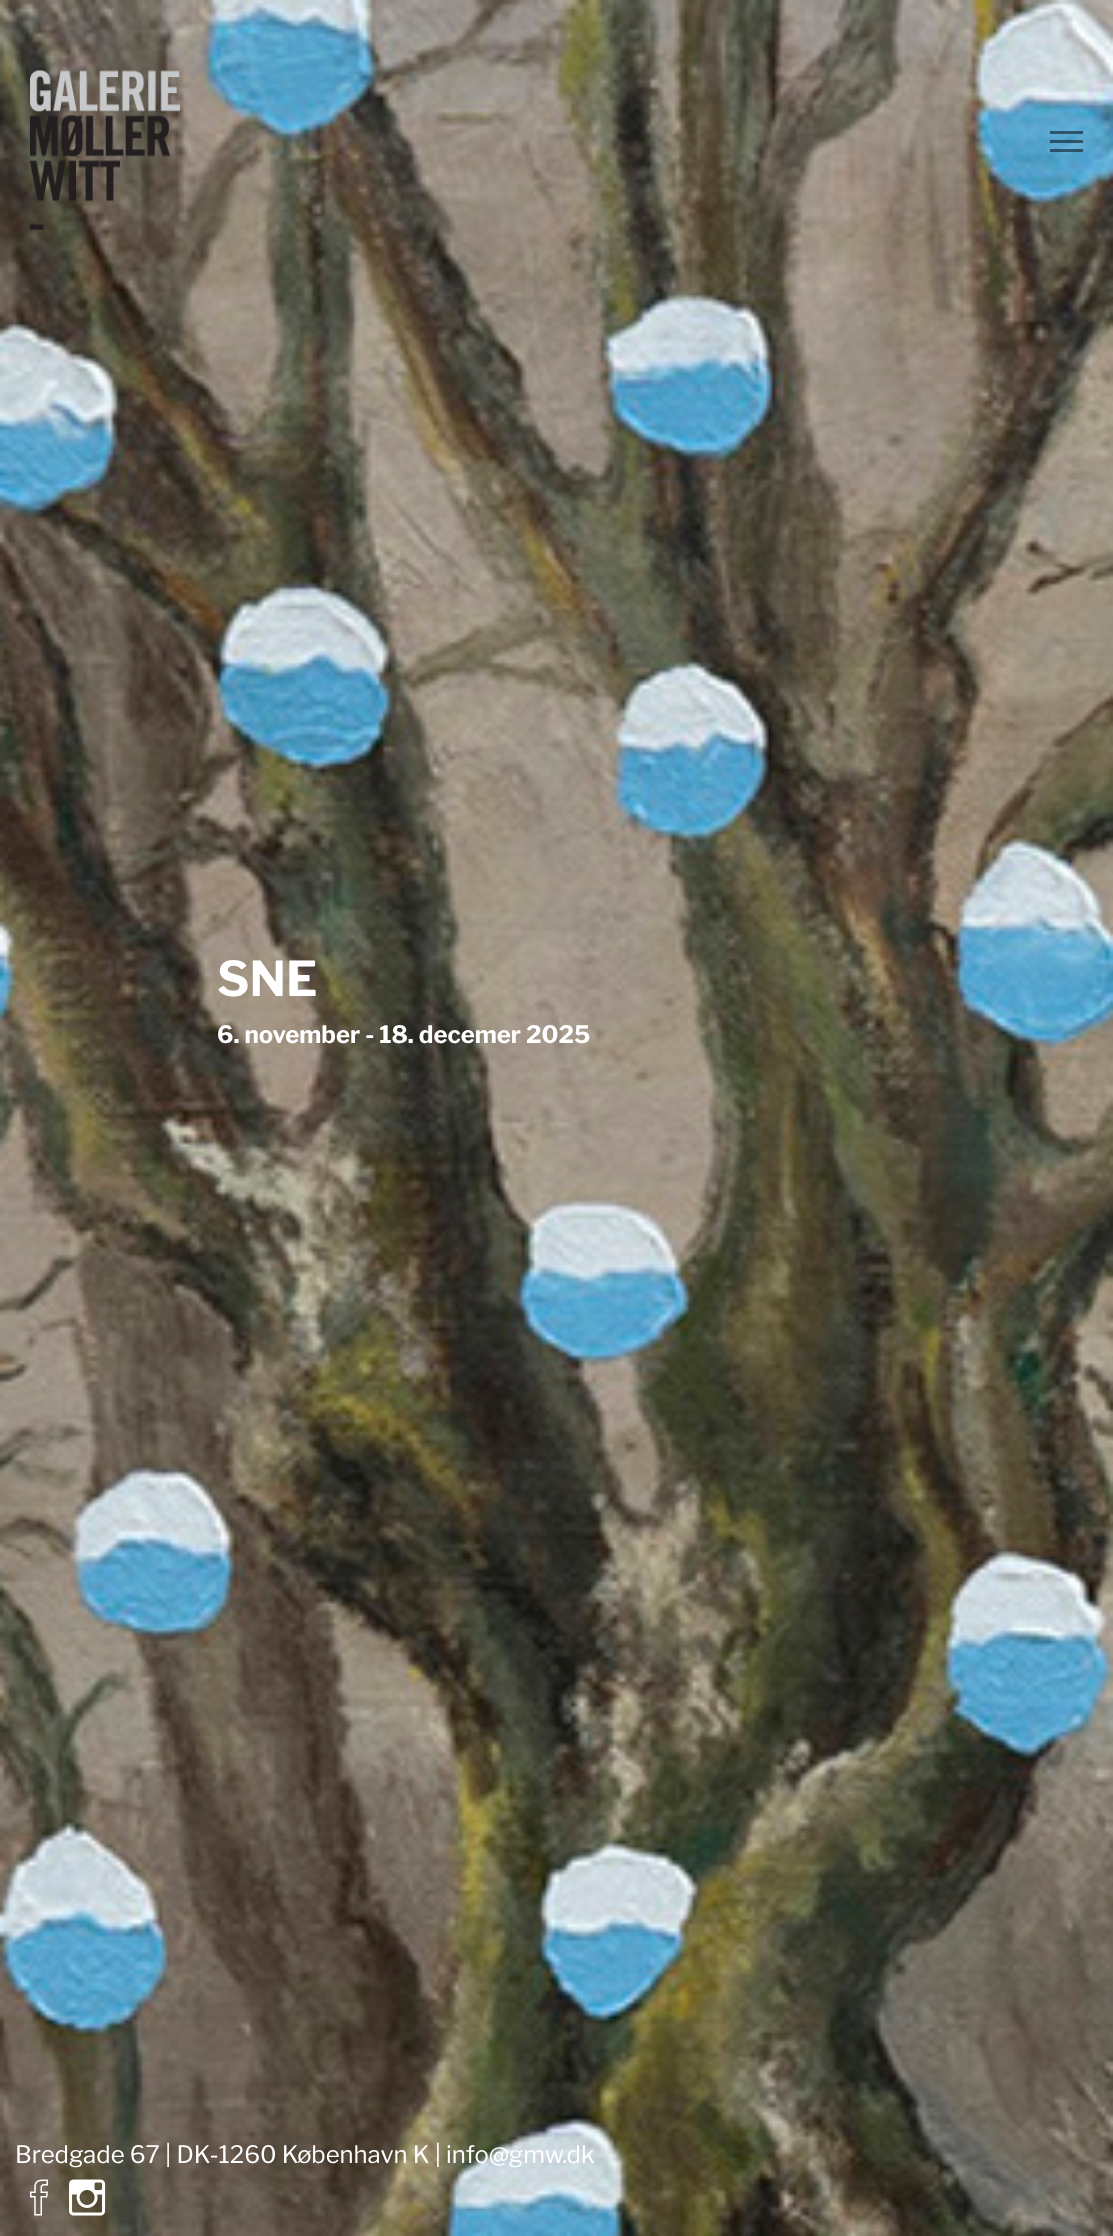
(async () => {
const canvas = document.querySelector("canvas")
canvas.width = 1113
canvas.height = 2236
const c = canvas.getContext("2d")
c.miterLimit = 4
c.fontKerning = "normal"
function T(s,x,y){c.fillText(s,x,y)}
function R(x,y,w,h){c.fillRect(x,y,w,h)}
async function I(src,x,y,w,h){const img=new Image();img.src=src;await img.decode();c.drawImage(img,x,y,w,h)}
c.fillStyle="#fff"
R(0,0,1113,2236)
await I("2.png",0,0,1113,2236)
await I("1.png",30,70,150,160)
c.fillStyle="#00000080"
R(1050,140,33,3)
R(1050,131,33,3)
R(1050,149,33,3)
c.font="bold 48px Libre Franklin"
c.fillStyle="#fff"
T("SNE",217,996)
c.font="bold 24px Libre Franklin"
T("6. november - 18. decemer 2025",217,1043)
c.font="24px Libre Franklin"
T("Bredgade 67 | DK-1260 København K | info@gmw.dk",15,2163)
await I("3.png",30,2179,18,37)
await I("4.png",69,2179,37,37)
})()
